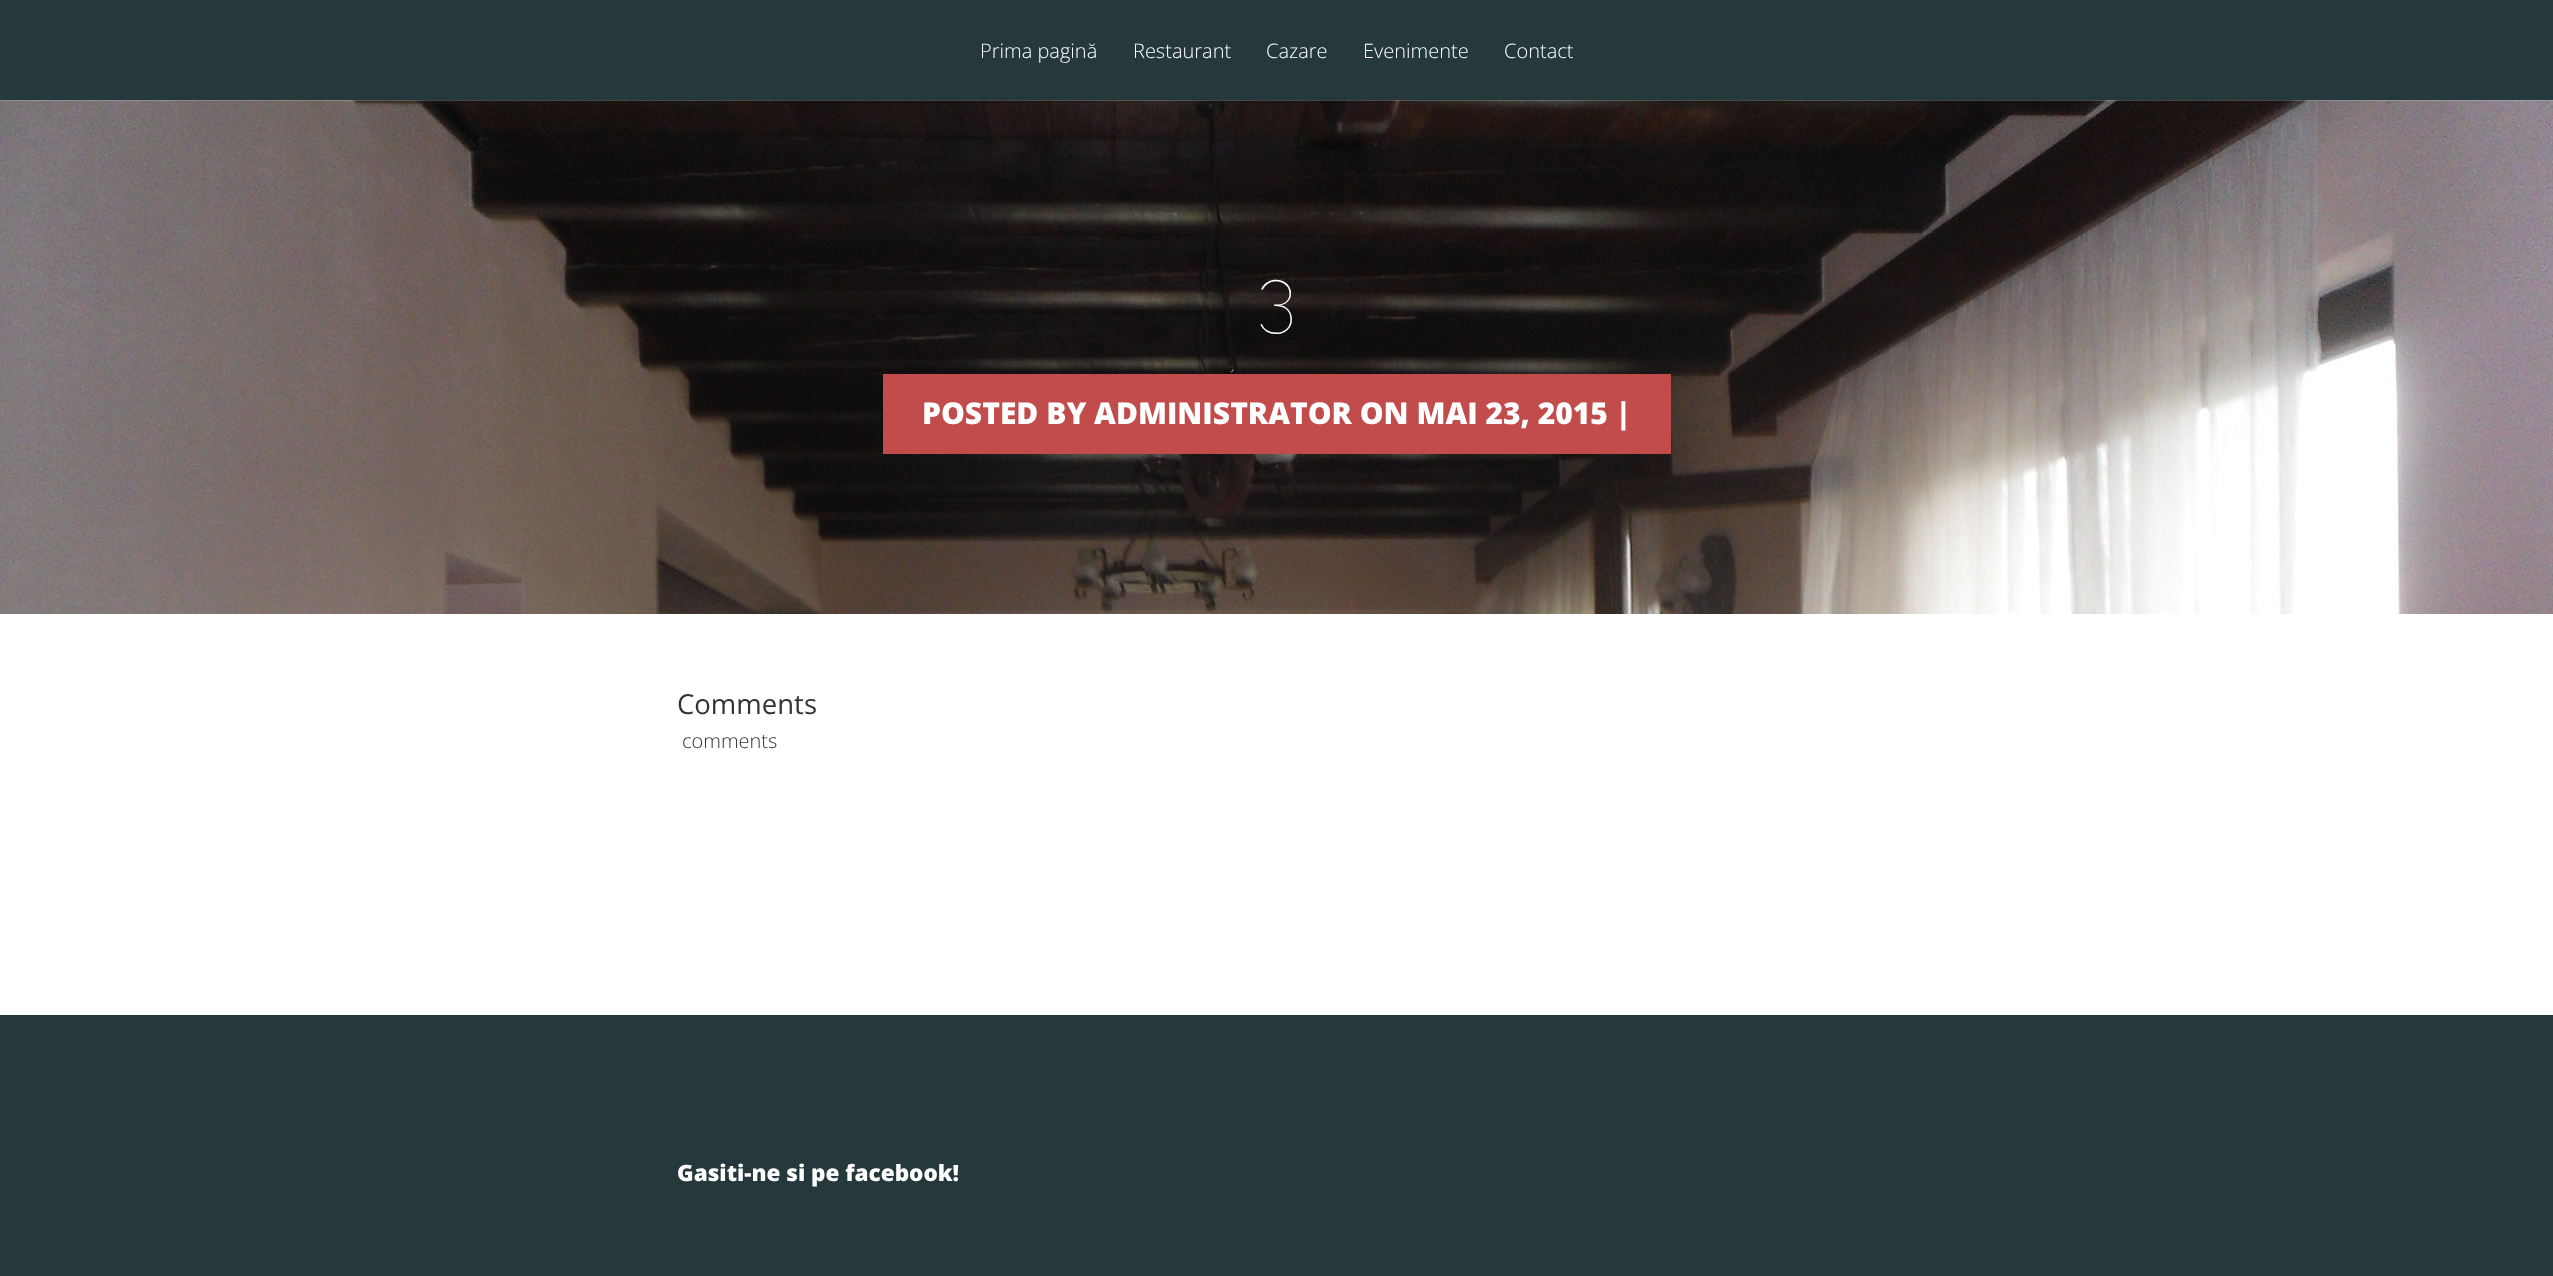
(async () => {
const canvas = document.querySelector("canvas")
canvas.width = 2553
canvas.height = 1276
const c = canvas.getContext("2d")
c.miterLimit = 4
c.fontKerning = "normal"
function T(s,x,y){c.fillText(s,x,y)}
function R(x,y,w,h){c.fillRect(x,y,w,h)}
async function I(src,x,y,w,h){const img=new Image();img.src=src;await img.decode();c.drawImage(img,x,y,w,h)}
let path
c.fillStyle="#25383b"
R(0,0,2553,1276)
await I("1.png",0,100,2553,514)
c.fillStyle="#ffffff33"
path = new Path2D("M0 100v1h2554v-100v99z")
c.fill(path)
c.font="300 20px Open Sans"
c.fillStyle="#fff"
T("Prima pagină",980,58)
T("Restaurant",1133,58)
T("Cazare",1266,58)
T("Evenimente",1363,58)
T("Contact",1504,58)
c.font="100 75px Raleway"
T("3",1257,323)
c.fillStyle="#c24c4c"
R(883,374,788,80)
c.font="800 30px Open Sans"
c.fillStyle="#fff"
T("POSTED BY ADMINISTRATOR ON MAI 23, 2015 |",922,424)
R(0,614,2553,401)
c.font="27.5px Open Sans"
c.fillStyle="#333"
T("Comments",677,714)
c.font="300 20px Open Sans"
T("comments",682,748)
c.font="800 22.5px Open Sans"
c.fillStyle="#fff"
T("Gasiti-ne si pe facebook!",677,1181)
})()
